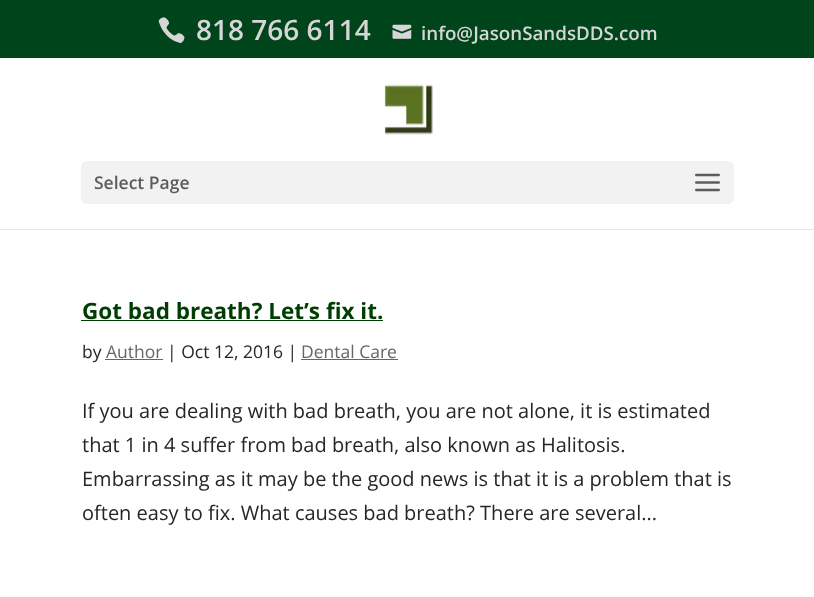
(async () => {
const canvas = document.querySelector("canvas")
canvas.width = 814
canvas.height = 597
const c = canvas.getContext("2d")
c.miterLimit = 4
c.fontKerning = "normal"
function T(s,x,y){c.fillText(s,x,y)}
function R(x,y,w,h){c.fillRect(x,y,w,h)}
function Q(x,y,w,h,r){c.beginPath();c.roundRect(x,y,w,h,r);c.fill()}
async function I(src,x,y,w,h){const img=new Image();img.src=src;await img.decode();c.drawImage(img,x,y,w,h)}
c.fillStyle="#fff"
R(0,0,814,597)
c.fillStyle="#00441b"
R(0,0,814,58)
await I("1.png",158,17,27,27)
c.font="600 28px Open Sans"
c.fillStyle="#d6d6d6"
T("818 766 6114",196,40)
await I("2.png",392,24,20,15)
c.font="600 18.75px Open Sans"
T("info@JasonSandsDDS.com",421,40)
c.fillStyle="#e6e6e6"
R(0,229,814,1)
await I("3.png",384,84,49,51)
c.fillStyle="#f2f2f2"
Q(81,161,653,43,6)
c.font="600 17.5px Open Sans"
c.fillStyle="#5c5c5c"
T("Select Page",94,189)
await I("4.png",695,173,25,19)
c.font="bold 22.5px Open Sans"
c.fillStyle="#003d03"
T("Got bad breath? Let’s fix it.",82,319)
R(81,320,302,1)
c.font="17.5px Open Sans"
c.fillStyle="#262626"
T("by",82,358)
c.fillStyle="#666"
T("Author",106,358)
R(105,359,58,1)
c.fillStyle="#262626"
T("| Oct 12, 2016 |",167,358)
c.fillStyle="#666"
T("Dental Care",301,358)
R(301,359,97,1)
c.font="20px Open Sans"
c.fillStyle="#262626"
T("If you are dealing with bad breath, you are not alone, it is estimated",82,418)
T("that 1 in 4 suffer from bad breath, also known as Halitosis.",82,452)
T("Embarrassing as it may be the good news is that it is a problem that is",82,486)
T("often easy to fix. What causes bad breath? There are several...",82,520)
})()
